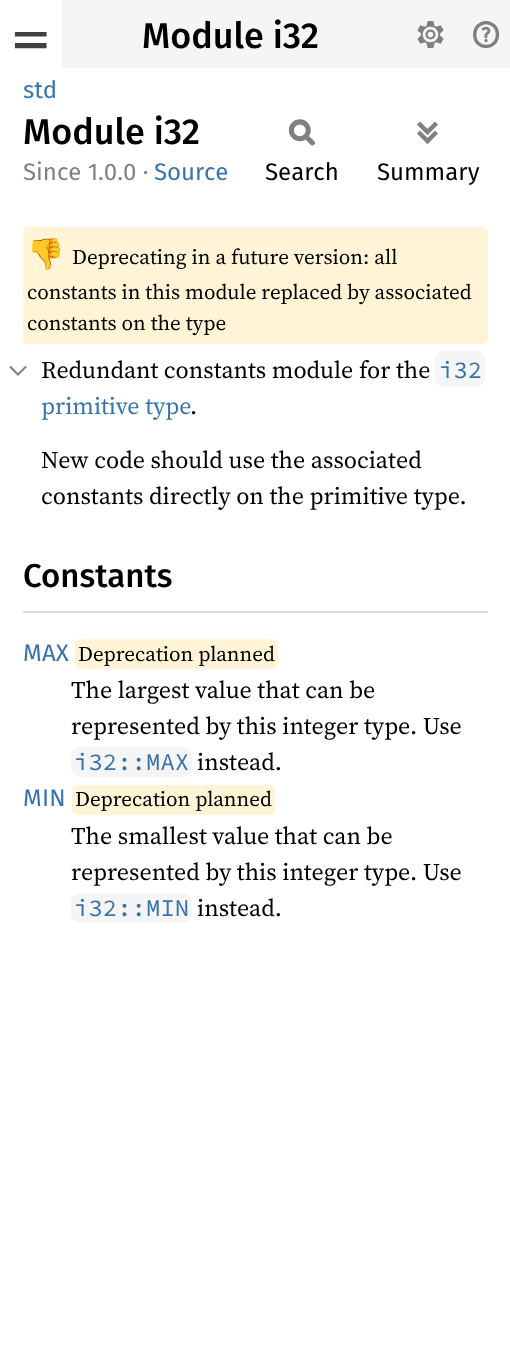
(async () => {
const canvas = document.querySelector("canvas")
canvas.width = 510
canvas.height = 1346
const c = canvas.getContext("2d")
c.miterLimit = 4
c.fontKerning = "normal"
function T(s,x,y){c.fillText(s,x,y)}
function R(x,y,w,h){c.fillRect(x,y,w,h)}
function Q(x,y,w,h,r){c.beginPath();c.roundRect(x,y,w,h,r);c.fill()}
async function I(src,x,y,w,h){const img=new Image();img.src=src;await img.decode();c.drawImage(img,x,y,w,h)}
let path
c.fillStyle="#fff"
R(0,0,510,1346)
c.fillStyle="#f5f5f5"
R(62,0,448,68)
await I("1.png",14,32,33,17)
c.font="500 36px Fira Sans"
c.fillStyle="#000"
T("Module i32",142,48)
await I("2.png",417,21,27,27)
await I("3.png",473,21,27,27)
c.font="24px Fira Sans"
c.fillStyle="#3873ad"
T("std",23,98)
c.font="500 36px Fira Sans"
c.fillStyle="#000"
T("Module i32",23,144)
c.font="24px Fira Sans"
c.fillStyle="#808080"
T("Since 1.0.0 ·",23,180)
c.fillStyle="#3873ad"
T("Source",154,180)
await I("4.png",288,119,27,27)
c.fillStyle="#000"
T("Search",265,180)
await I("5.png",417,121,21,24)
T("Summary",377,180)
c.fillStyle="#fff5d6"
Q(23,227,465,117,5)
c.font="30px Noto Color Emoji"
c.fillStyle="#000"
T("👎",27,264)
c.font="21px 'Source Serif 4'"
T("Deprecating in a future version: all",72,264)
T("constants in this module replaced by associated",27,299)
T("constants on the type",27,330)
path = new Path2D("M10 366.5l8 8l8-8")
c.strokeStyle="#808080"
c.lineWidth=2
c.stroke(path)
c.font="24px 'Source Serif 4'"
T("Redundant constants module for the",41,378)
c.fillStyle="#f5f5f5"
Q(435,351,50,36,9)
c.font="24px Source Code Pro"
c.fillStyle="#3873ad"
T("i32",439,378)
c.font="24px 'Source Serif 4'"
T("primitive type",41,414)
c.fillStyle="#000"
T(".",190,414)
T("New code should use the associated",41,468)
T("constants directly on the primitive type.",41,504)
c.fillStyle="#ddd"
R(23,611,465,2)
c.font="500 33px Fira Sans"
c.fillStyle="#000"
T("Constants",23,587)
c.font="24px Fira Sans"
c.fillStyle="#3873ad"
T("MAX",23,661)
c.fillStyle="#fff5d6"
Q(75,639,203,30,5)
c.font="21px 'Source Serif 4'"
c.fillStyle="#000"
T("Deprecation planned",78,661)
c.font="24px 'Source Serif 4'"
T("The largest value that can be",71,698)
T("represented by this integer type. Use",71,734)
c.fillStyle="#f5f5f5"
Q(71,747,121,30,9)
c.font="24px Source Code Pro"
c.fillStyle="#3873ad"
T("i32::MAX",74,770)
c.font="24px 'Source Serif 4'"
c.fillStyle="#000"
T("instead.",197,770)
c.font="24px Fira Sans"
c.fillStyle="#3873ad"
T("MIN",23,806)
c.fillStyle="#fff5d6"
Q(72,785,203,30,5)
c.font="21px 'Source Serif 4'"
c.fillStyle="#000"
T("Deprecation planned",75,806)
c.font="24px 'Source Serif 4'"
T("The smallest value that can be",71,844)
T("represented by this integer type. Use",71,880)
c.fillStyle="#f5f5f5"
Q(71,893,121,30,9)
c.font="24px Source Code Pro"
c.fillStyle="#3873ad"
T("i32::MIN",74,916)
c.font="24px 'Source Serif 4'"
c.fillStyle="#000"
T("instead.",197,916)
})()
